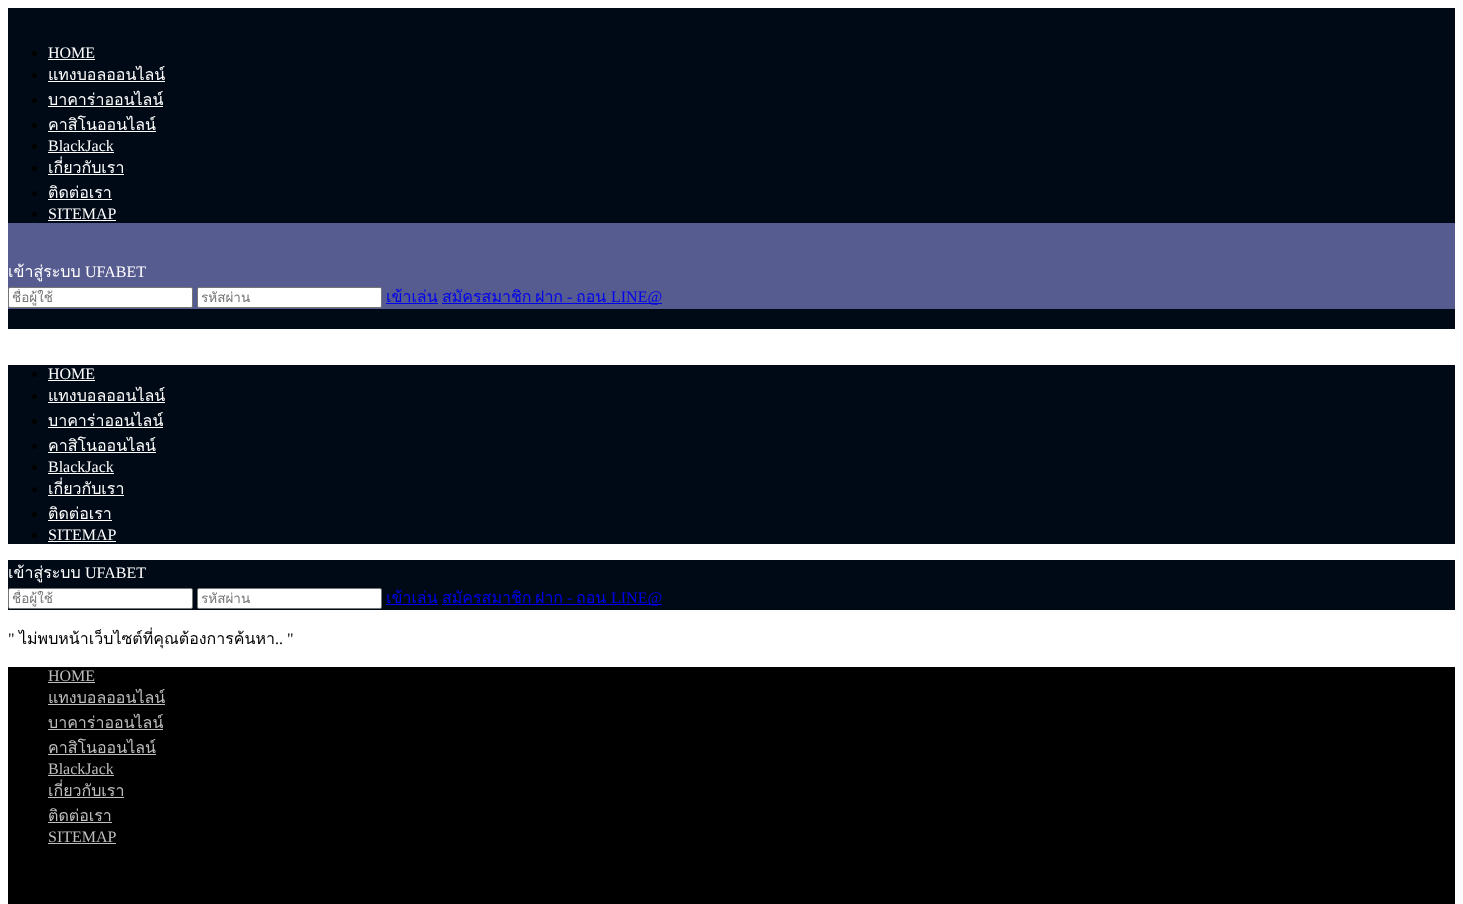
(async () => {
const canvas = document.querySelector("canvas")
canvas.width = 1463
canvas.height = 904
const c = canvas.getContext("2d")
c.miterLimit = 4
c.fontKerning = "normal"
function T(s,x,y){c.fillText(s,x,y)}
function R(x,y,w,h){c.fillRect(x,y,w,h)}
c.fillStyle="#fff"
R(0,0,1463,904)
c.fillStyle="#575c90"
R(8,223,1447,86)
c.fillStyle="#000a16"
R(8,8,1447,215)
c.fillStyle="#000"
c.beginPath()
c.arc(34.5,53.5,2.5,0,7)
c.fill()
c.font="16px Liberation Serif"
c.fillStyle="#fff"
T("HOME",48,58)
R(48,59,47,1)
c.fillStyle="#000"
c.beginPath()
c.arc(34.5,75.5,2.5,0,7)
c.fill()
c.font="16px Loma"
c.fillStyle="#fff"
T("แทงบอลออนไลน์",48,80)
R(48,81,117,1)
c.fillStyle="#000"
c.beginPath()
c.arc(34.5,100.5,2.5,0,7)
c.fill()
c.fillStyle="#fff"
T("บาคาร่าออนไลน์",48,105)
R(48,106,115,1)
c.fillStyle="#000"
c.beginPath()
c.arc(34.5,125.5,2.5,0,7)
c.fill()
c.fillStyle="#fff"
T("คาสิโนออนไลน์",48,130)
R(48,131,108,1)
c.fillStyle="#000"
c.beginPath()
c.arc(34.5,146.5,2.5,0,7)
c.fill()
c.font="16px Liberation Serif"
c.fillStyle="#fff"
T("BlackJack",48,151)
R(48,152,66,1)
c.fillStyle="#000"
c.beginPath()
c.arc(34.5,168.5,2.5,0,7)
c.fill()
c.font="16px Loma"
c.fillStyle="#fff"
T("เกี่ยวกับเรา",48,173)
R(48,174,76,1)
c.fillStyle="#000"
c.beginPath()
c.arc(34.5,193.5,2.5,0,7)
c.fill()
c.fillStyle="#fff"
T("ติดต่อเรา",48,198)
R(48,199,64,1)
c.fillStyle="#000"
c.beginPath()
c.arc(34.5,214.5,2.5,0,7)
c.fill()
c.font="16px Liberation Serif"
c.fillStyle="#fff"
T("SITEMAP",48,219)
R(48,220,68,1)
c.font="16px Loma"
T("เข้าสู่ระบบ",8,277)
c.font="16px Liberation Serif"
T("UFABET",85,277)
c.beginPath()
c.roundRect(8.5,287.5,184,20,1.5)
c.fill()
c.strokeStyle="#767676"
c.stroke()
c.save()
c.beginPath()
c.rect(12,289,177,17)
c.clip()
c.font="13.5px Loma"
c.fillStyle="#757575"
T("ชื่อผู้ใช้",12,302)
c.restore()
c.beginPath()
c.roundRect(197.5,287.5,184,20,1.5)
c.fill()
c.stroke()
c.font="13.5px Loma"
c.fillStyle="#757575"
T("รหัสผ่าน",201,302)
c.font="16px Loma"
c.fillStyle="#00e"
T("เข้าเล่น",386,302)
R(386,303,52,1)
T("สมัครสมาชิก",442,302)
R(442,303,220,1)
T("ฝาก",535,302)
c.font="16px Liberation Serif"
T("-",567,302)
c.font="16px Loma"
T("ถอน",576,302)
c.font="16px Liberation Serif"
T("LINE@",611,302)
c.fillStyle="#000a16"
R(8,309,1447,20)
R(8,365,1447,179)
c.fillStyle="#000"
c.beginPath()
c.arc(34.5,374.5,2.5,0,7)
c.fill()
c.fillStyle="#fff"
T("HOME",48,379)
R(48,380,47,1)
c.fillStyle="#000"
c.beginPath()
c.arc(34.5,396.5,2.5,0,7)
c.fill()
c.font="16px Loma"
c.fillStyle="#fff"
T("แทงบอลออนไลน์",48,401)
R(48,402,117,1)
c.fillStyle="#000"
c.beginPath()
c.arc(34.5,421.5,2.5,0,7)
c.fill()
c.fillStyle="#fff"
T("บาคาร่าออนไลน์",48,426)
R(48,427,115,1)
c.fillStyle="#000"
c.beginPath()
c.arc(34.5,446.5,2.5,0,7)
c.fill()
c.fillStyle="#fff"
T("คาสิโนออนไลน์",48,451)
R(48,452,108,1)
c.fillStyle="#000"
c.beginPath()
c.arc(34.5,467.5,2.5,0,7)
c.fill()
c.font="16px Liberation Serif"
c.fillStyle="#fff"
T("BlackJack",48,472)
R(48,473,66,1)
c.fillStyle="#000"
c.beginPath()
c.arc(34.5,489.5,2.5,0,7)
c.fill()
c.font="16px Loma"
c.fillStyle="#fff"
T("เกี่ยวกับเรา",48,494)
R(48,495,76,1)
c.fillStyle="#000"
c.beginPath()
c.arc(34.5,514.5,2.5,0,7)
c.fill()
c.fillStyle="#fff"
T("ติดต่อเรา",48,519)
R(48,520,64,1)
c.fillStyle="#000"
c.beginPath()
c.arc(34.5,535.5,2.5,0,7)
c.fill()
c.font="16px Liberation Serif"
c.fillStyle="#fff"
T("SITEMAP",48,540)
R(48,541,68,1)
c.fillStyle="#000a16"
R(8,560,1447,50)
c.font="16px Loma"
c.fillStyle="#fff"
T("เข้าสู่ระบบ",8,578)
c.font="16px Liberation Serif"
T("UFABET",85,578)
c.beginPath()
c.roundRect(8.5,588.5,184,20,1.5)
c.fill()
c.stroke()
c.save()
c.beginPath()
c.rect(12,590,177,17)
c.clip()
c.font="13.5px Loma"
c.fillStyle="#757575"
T("ชื่อผู้ใช้",12,603)
c.restore()
c.beginPath()
c.roundRect(197.5,588.5,184,20,1.5)
c.fill()
c.stroke()
c.font="13.5px Loma"
c.fillStyle="#757575"
T("รหัสผ่าน",201,603)
c.font="16px Loma"
c.fillStyle="#00e"
T("เข้าเล่น",386,603)
R(386,604,52,1)
T("สมัครสมาชิก",442,603)
R(442,604,220,1)
T("ฝาก",535,603)
c.font="16px Liberation Serif"
T("-",567,603)
c.font="16px Loma"
T("ถอน",576,603)
c.font="16px Liberation Serif"
T("LINE@",611,603)
c.fillStyle="#000"
T("\"",8,644)
c.font="16px Loma"
T("ไม่พบหน้าเว็บไซต์ที่คุณต้องการค้นหา",19,644)
c.font="16px Liberation Serif"
T(".. \"",275,644)
R(8,667,1447,237)
c.fillStyle="#bfbfbf"
T("HOME",48,681)
R(48,682,47,1)
c.font="16px Loma"
T("แทงบอลออนไลน์",48,703)
R(48,704,117,1)
T("บาคาร่าออนไลน์",48,728)
R(48,729,115,1)
T("คาสิโนออนไลน์",48,753)
R(48,754,108,1)
c.font="16px Liberation Serif"
T("BlackJack",48,774)
R(48,775,66,1)
c.font="16px Loma"
T("เกี่ยวกับเรา",48,796)
R(48,797,76,1)
T("ติดต่อเรา",48,821)
R(48,822,64,1)
c.font="16px Liberation Serif"
T("SITEMAP",48,842)
R(48,843,68,1)
})()
